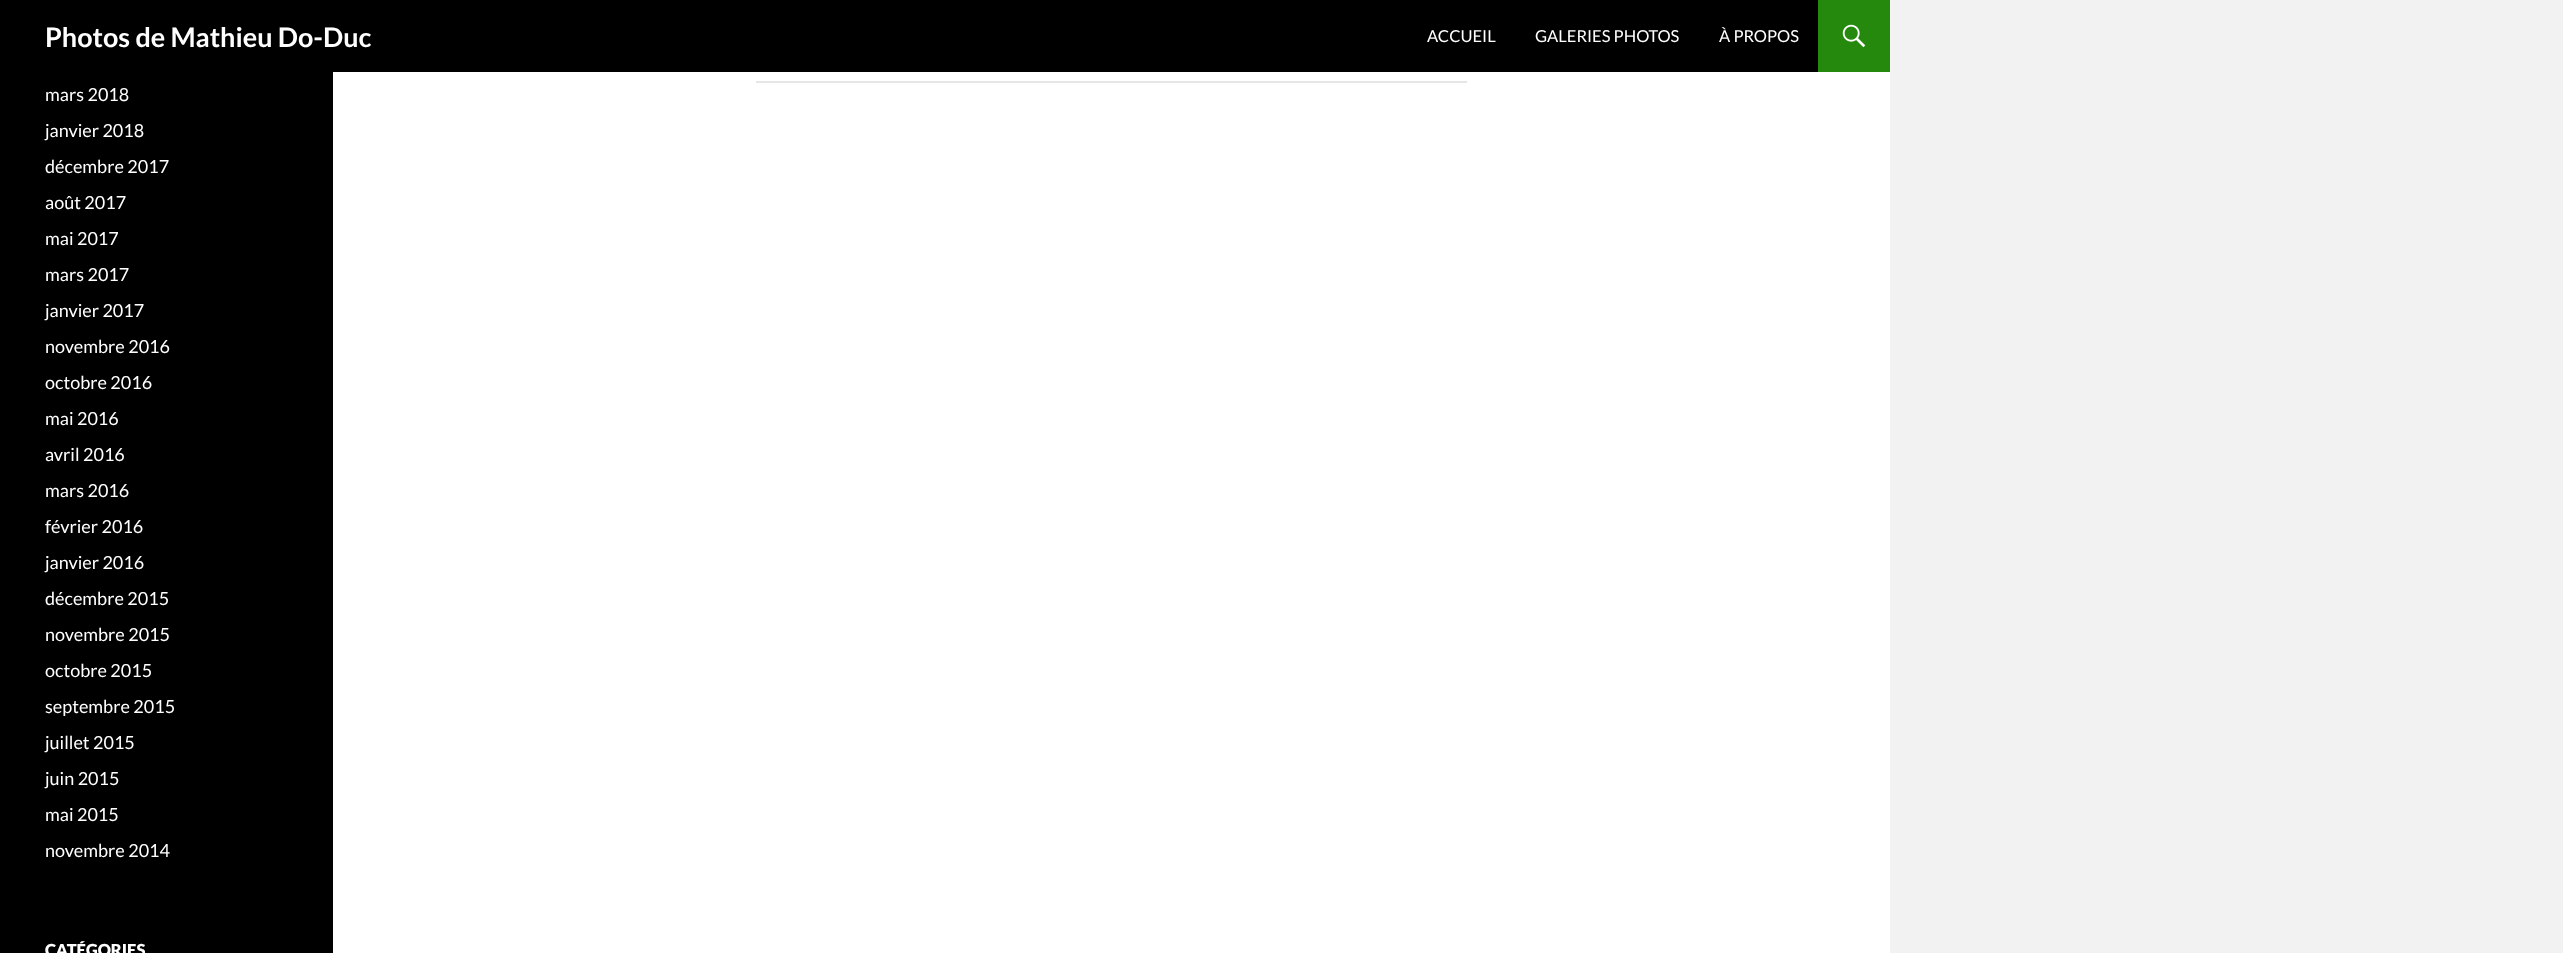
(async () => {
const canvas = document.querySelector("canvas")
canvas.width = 2563
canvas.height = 953
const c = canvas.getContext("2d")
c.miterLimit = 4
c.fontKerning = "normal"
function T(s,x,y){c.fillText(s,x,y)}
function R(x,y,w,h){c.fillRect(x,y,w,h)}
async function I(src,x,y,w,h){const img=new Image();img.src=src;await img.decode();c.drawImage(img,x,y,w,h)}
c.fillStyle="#f2f2f2"
R(0,0,2563,953)
c.fillStyle="#fff"
R(333,72,1557,881)
c.fillStyle="#000"
R(0,0,1818,72)
c.font="bold 27px Lato"
c.fillStyle="#fff"
T("Photos de Mathieu Do-Duc",45,47)
c.font="16.5px Lato"
T("ACCUEIL",1427,42)
T("GALERIES PHOTOS",1535,42)
T("À PROPOS",1719,42)
c.fillStyle="#24890d"
R(1818,0,72,72)
await I("1.png",1842,24,24,24)
c.fillStyle="#000"
R(0,72,333,881)
c.fillStyle="#e6e6e6"
R(756,81,711,2)
c.font="18px Lato"
c.fillStyle="#fff"
T("mars 2018",45,101)
T("janvier 2018",45,137)
T("décembre 2017",45,173)
T("août 2017",45,209)
T("mai 2017",45,245)
T("mars 2017",45,281)
T("janvier 2017",45,317)
T("novembre 2016",45,353)
T("octobre 2016",45,389)
T("mai 2016",45,425)
T("avril 2016",45,461)
T("mars 2016",45,497)
T("février 2016",45,533)
T("janvier 2016",45,569)
T("décembre 2015",45,605)
T("novembre 2015",45,641)
T("octobre 2015",45,677)
T("septembre 2015",45,713)
T("juillet 2015",45,749)
T("juin 2015",45,785)
T("mai 2015",45,821)
T("novembre 2014",45,857)
c.font="900 16.5px Lato"
T("CATÉGORIES",45,956)
})()
